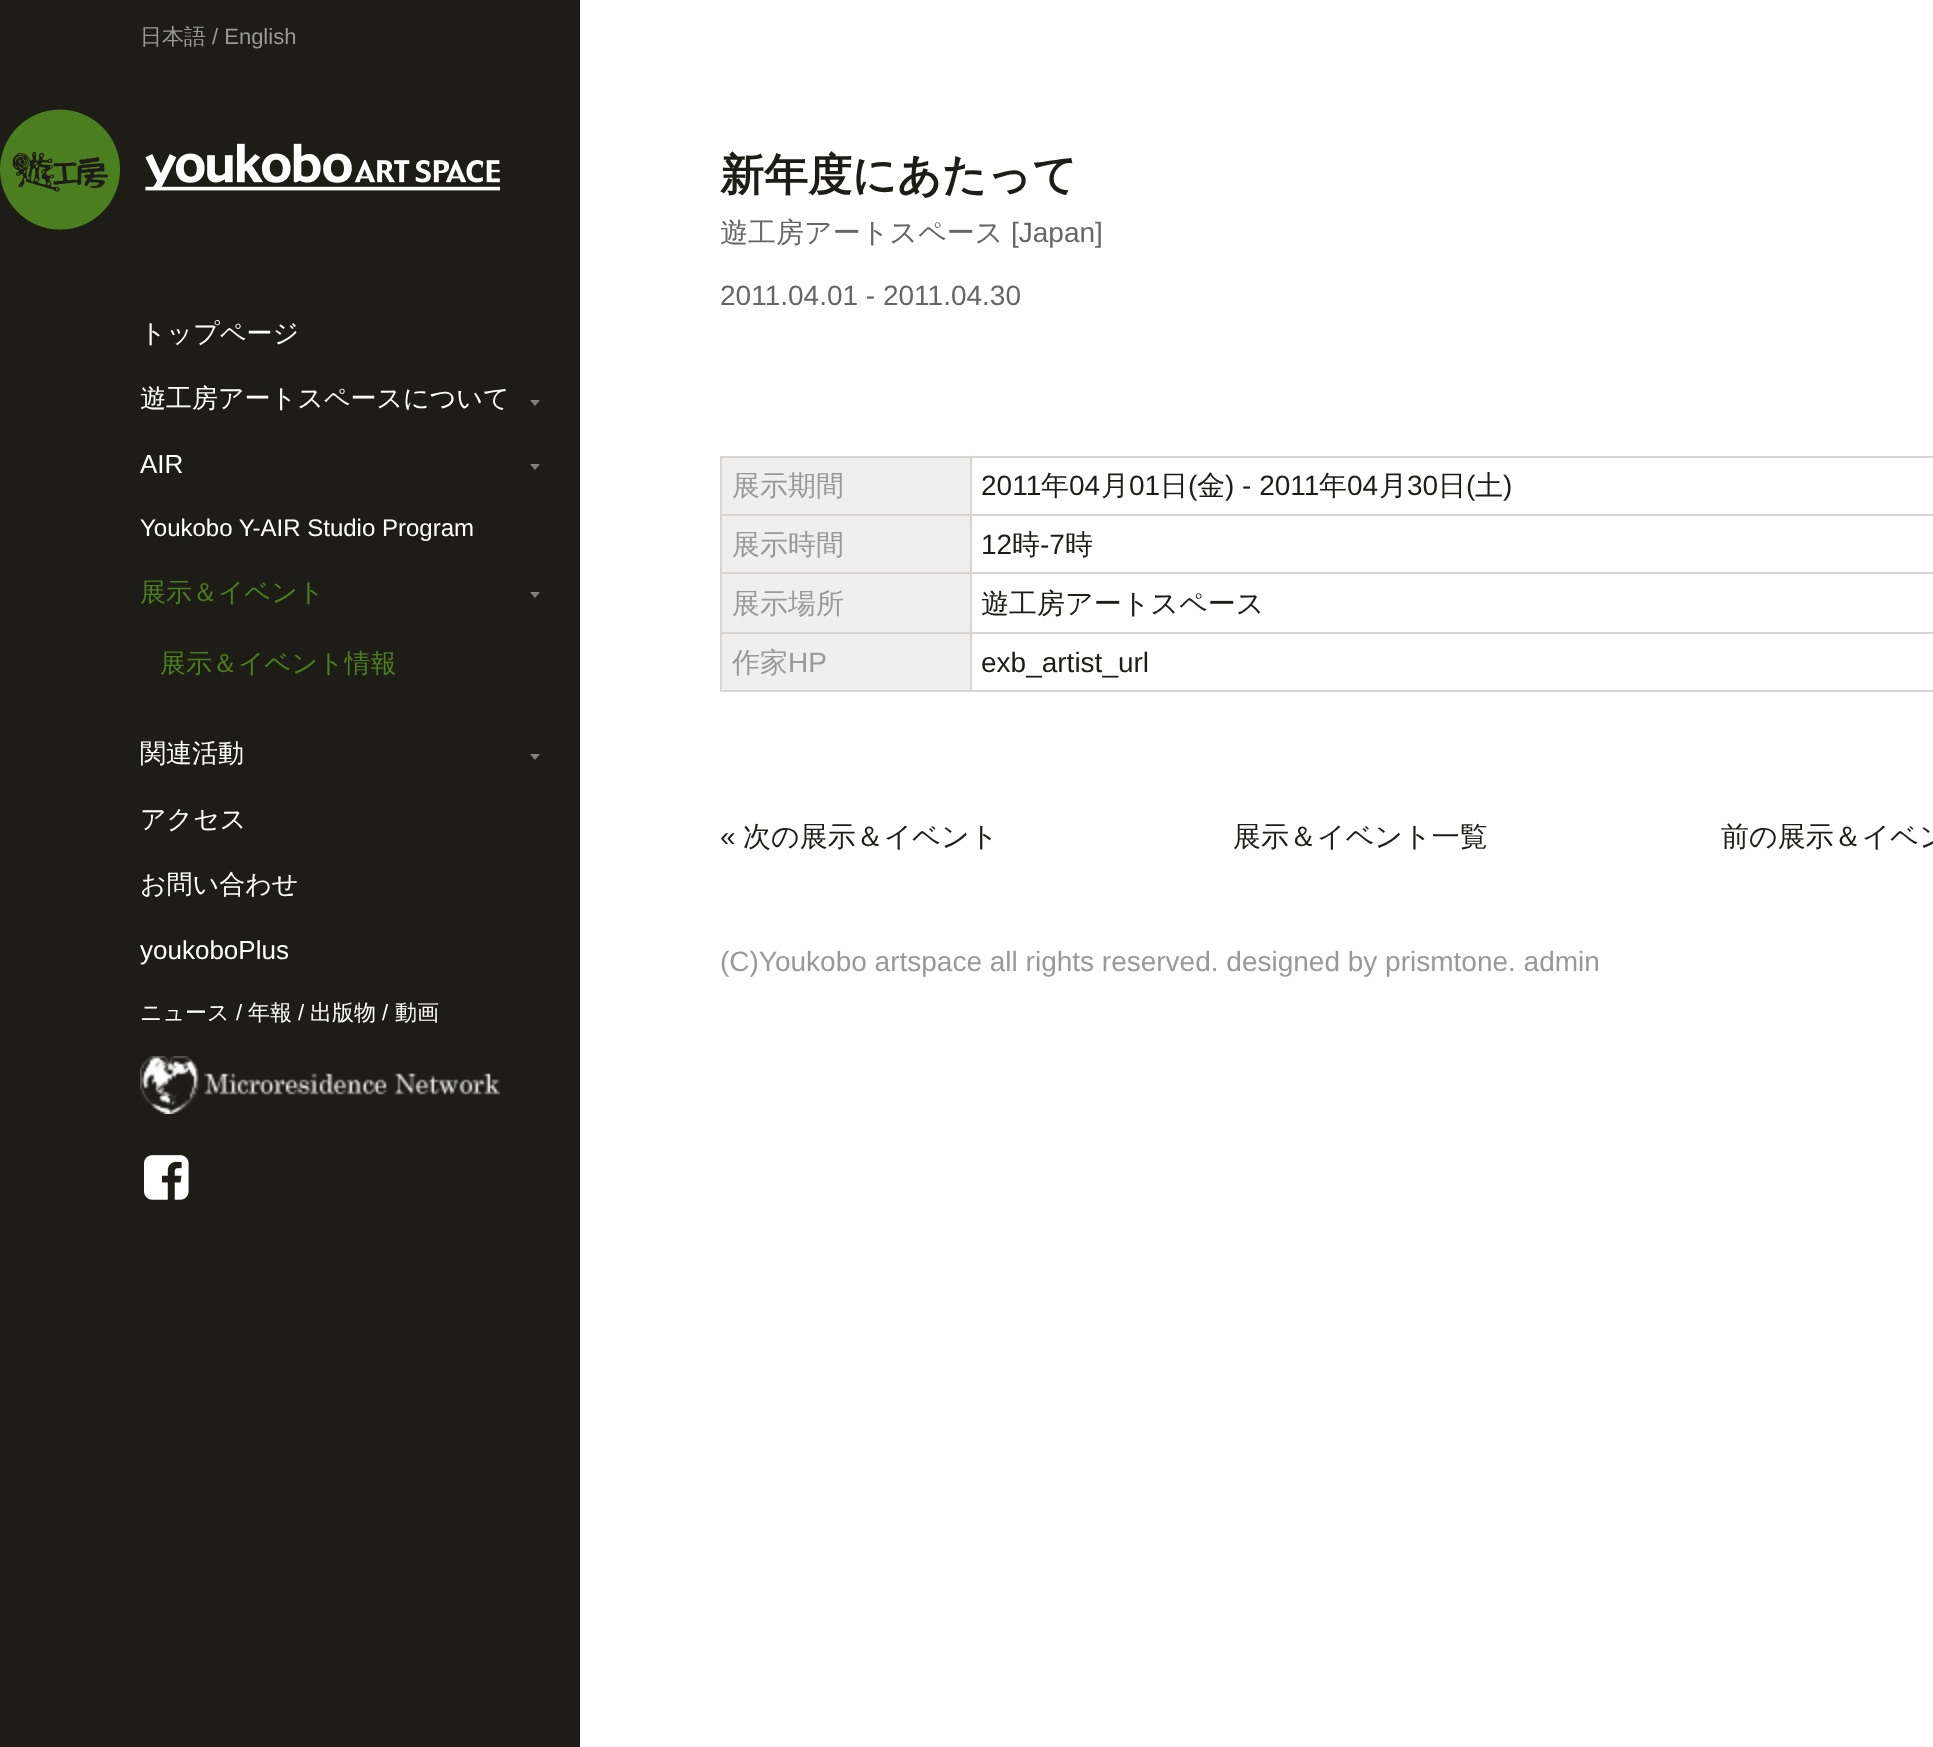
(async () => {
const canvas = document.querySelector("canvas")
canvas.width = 1933
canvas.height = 1747
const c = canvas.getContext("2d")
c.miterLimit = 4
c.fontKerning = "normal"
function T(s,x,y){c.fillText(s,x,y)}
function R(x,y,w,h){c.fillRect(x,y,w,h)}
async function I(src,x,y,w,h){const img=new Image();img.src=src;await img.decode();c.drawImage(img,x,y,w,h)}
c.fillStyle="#fff"
R(0,0,1933,1747)
c.fillStyle="#1e1c16"
R(0,0,580,1747)
c.font="500 22px WenQuanYi Zen Hei"
c.fillStyle="#999"
T("日本語",140,44)
c.font="22px Liberation Sans"
T("/ English",212,44)
c.font="500 26px WenQuanYi Zen Hei"
c.fillStyle="#fff"
T("トップページ",140,342)
await I("1.png",530,400,10,6)
T("遊工房アートスペースについて",140,407)
await I("1.png",530,464,10,6)
c.font="26px Liberation Sans"
T("AIR",140,473)
c.font="24px Liberation Sans"
T("Youkobo Y-AIR Studio Program",140,536)
await I("1.png",530,592,10,6)
c.font="500 26px WenQuanYi Zen Hei"
c.fillStyle="#4a7e1f"
T("展示＆イベント",140,601)
T("展示＆イベント情報",160,672)
await I("1.png",530,754,10,6)
c.fillStyle="#fff"
T("関連活動",140,762)
T("アクセス",140,828)
T("お問い合わせ",140,893)
c.font="26px Liberation Sans"
T("youkoboPlus",140,959)
c.font="500 22px WenQuanYi Zen Hei"
T("ニュース",140,1020)
c.font="22px Liberation Sans"
T("/",236,1020)
c.font="500 22px WenQuanYi Zen Hei"
T("年報",248,1020)
c.font="22px Liberation Sans"
T("/",298,1020)
c.font="500 22px WenQuanYi Zen Hei"
T("出版物",310,1020)
c.font="22px Liberation Sans"
T("/",382,1020)
c.font="500 22px WenQuanYi Zen Hei"
T("動画",395,1020)
await I("2.png",140,1056,360,58)
await I("3.png",144,1155,45,45)
await I("4.png",0,109,500,121)
c.font="bold 44px WenQuanYi Zen Hei"
c.fillStyle="#1e1c16"
T("新年度にあたって",720,190)
c.font="500 28px WenQuanYi Zen Hei"
c.fillStyle="#666"
T("遊工房アートスペース",720,242)
c.font="28px Liberation Sans"
T("[Japan]",1011,242)
T("2011.04.01 - 2011.04.30",720,305)
c.fillStyle="#d8d5d0"
R(720,456,1213,2)
R(720,690,1213,2)
R(720,456,2,236)
c.fillStyle="#efefef"
R(722,458,248,56)
c.font="500 28px WenQuanYi Zen Hei"
c.fillStyle="#999"
T("展示期間",732,495)
c.fillStyle="#d8d5d0"
R(970,514,963,2)
R(970,572,963,2)
R(970,632,963,2)
R(970,632,2,60)
R(720,632,252,2)
R(970,572,2,62)
R(720,572,252,2)
R(970,514,2,60)
R(720,514,252,2)
R(970,456,2,60)
c.font="28px Liberation Sans"
c.fillStyle="#1e1c16"
T("2011",981,495)
c.font="500 28px WenQuanYi Zen Hei"
T("年",1041,495)
c.font="28px Liberation Sans"
T("04",1069,495)
c.font="500 28px WenQuanYi Zen Hei"
T("月",1101,495)
c.font="28px Liberation Sans"
T("01",1129,495)
c.font="500 28px WenQuanYi Zen Hei"
T("日",1160,495)
c.font="28px Liberation Sans"
T("(",1188,495)
c.font="500 28px WenQuanYi Zen Hei"
T("金",1197,495)
c.font="28px Liberation Sans"
T(") - 2011",1225,495)
c.font="500 28px WenQuanYi Zen Hei"
T("年",1319,495)
c.font="28px Liberation Sans"
T("04",1347,495)
c.font="500 28px WenQuanYi Zen Hei"
T("月",1379,495)
c.font="28px Liberation Sans"
T("30",1407,495)
c.font="500 28px WenQuanYi Zen Hei"
T("日",1438,495)
c.font="28px Liberation Sans"
T("(",1466,495)
c.font="500 28px WenQuanYi Zen Hei"
T("土",1475,495)
c.font="28px Liberation Sans"
T(")",1503,495)
c.fillStyle="#efefef"
R(722,516,248,56)
c.font="500 28px WenQuanYi Zen Hei"
c.fillStyle="#999"
T("展示時間",732,554)
c.font="28px Liberation Sans"
c.fillStyle="#1e1c16"
T("12",981,554)
c.font="500 28px WenQuanYi Zen Hei"
T("時",1012,554)
c.font="28px Liberation Sans"
T("-7",1040,554)
c.font="500 28px WenQuanYi Zen Hei"
T("時",1065,554)
c.fillStyle="#efefef"
R(722,574,248,58)
c.fillStyle="#999"
T("展示場所",732,613)
c.fillStyle="#1e1c16"
T("遊工房アートスペース",981,613)
c.fillStyle="#efefef"
R(722,634,248,56)
c.fillStyle="#999"
T("作家",732,672)
c.font="28px Liberation Sans"
T("HP",788,672)
c.fillStyle="#1e1c16"
T("exb_artist_url",981,672)
T("«",720,846)
c.font="500 28px WenQuanYi Zen Hei"
T("次の展示＆イベント",743,846)
T("展示＆イベント一覧",1233,846)
T("前の展示＆イベン",1721,846)
c.font="28px Liberation Sans"
c.fillStyle="#999"
T("(C)Youkobo artspace all rights reserved. designed by prismtone. admin",720,971)
})()
